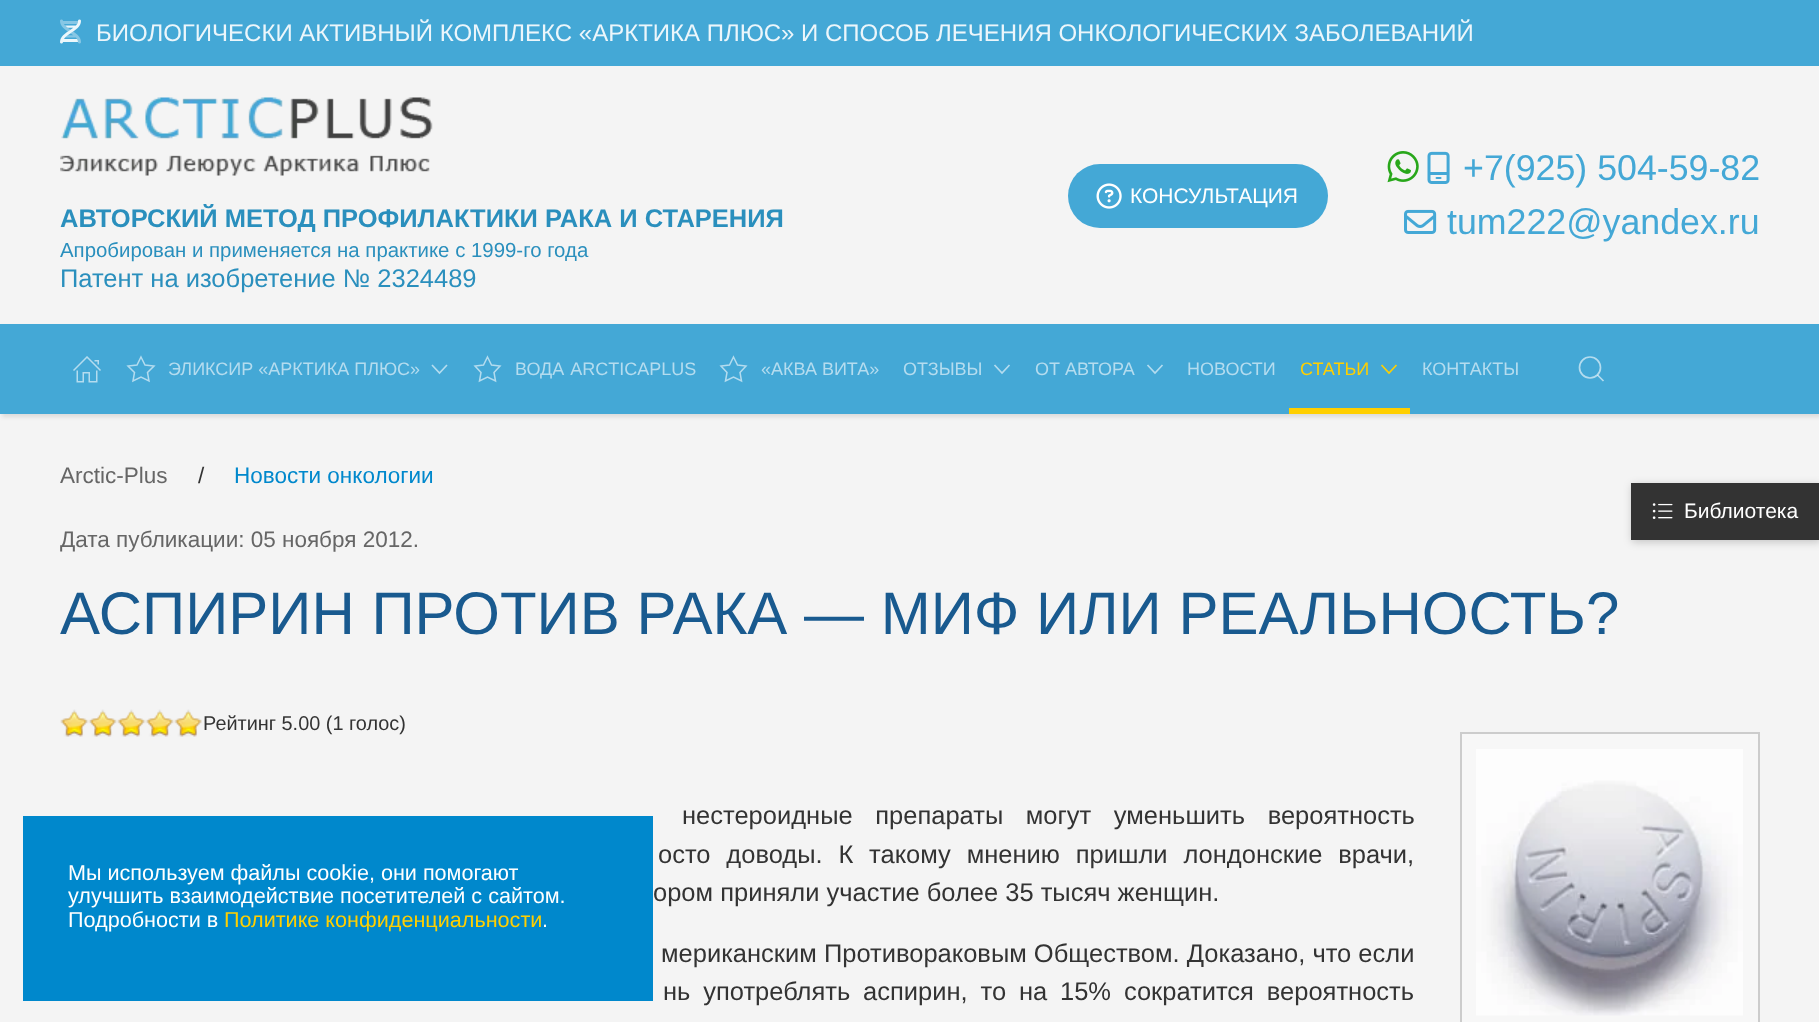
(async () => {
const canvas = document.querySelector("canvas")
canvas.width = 1819
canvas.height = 1022
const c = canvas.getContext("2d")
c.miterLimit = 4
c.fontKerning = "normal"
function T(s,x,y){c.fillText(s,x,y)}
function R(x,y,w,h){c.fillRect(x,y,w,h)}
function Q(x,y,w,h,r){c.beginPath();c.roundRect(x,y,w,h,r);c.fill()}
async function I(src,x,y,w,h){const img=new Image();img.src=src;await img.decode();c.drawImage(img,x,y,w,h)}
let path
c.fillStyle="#f4f4f4"
R(0,0,1819,1022)
c.fillStyle="#44a8d6"
R(0,0,1819,66)
await I("1.png",60,19,21,25)
await I("2.png",60,19,21,25)
c.font="24px Liberation Sans"
c.fillStyle="#ecf6fb"
T("БИОЛОГИЧЕСКИ АКТИВНЫЙ КОМПЛЕКС «АРКТИКА ПЛЮС» И СПОСОБ ЛЕЧЕНИЯ ОНКОЛОГИЧЕСКИХ ЗАБОЛЕВАНИЙ",96,41)
await I("3.png",60,97,373,79)
c.font="bold 25.5px Liberation Sans"
c.fillStyle="#2a8fbd"
T("АВТОРСКИЙ МЕТОД ПРОФИЛАКТИКИ РАКА И СТАРЕНИЯ",60,227)
c.font="20.4px Liberation Sans"
T("Апробирован и применяется на практике с 1999-го года",60,257)
c.font="25.5px Liberation Sans"
T("Патент на изобретение № 2324489",60,287)
c.fillStyle="#44a8d6"
Q(1068,164,260,64,32)
await I("4.png",1096,183,26,26)
c.font="21px Liberation Sans"
c.fillStyle="#fff"
T("КОНСУЛЬТАЦИЯ",1130,203)
await I("5.png",1387,151,32,32)
await I("6.png",1427,151,23,33)
c.font="35.75px Liberation Sans"
c.fillStyle="#44a8d6"
T("+7(925) 504-59-82",1463,180)
await I("7.png",1404,209,33,25)
T("tum222@yandex.ru",1447,234)
c.fillStyle="#0000001a"
c.filter="blur(2px)"
c.beginPath()
c.rect(2,327,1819,90)
c.fill()
c.filter="none"
c.fillStyle="#44a8d6"
R(0,324,1819,90)
await I("8.png",73,356,28,27)
path = new Path2D("M141 357l4 8l9 1l-6.5 6.5l1.5 8.5l-8-4l-8 4l1.5-8.5l-6.5-6.5l9-1z")
c.strokeStyle="#b4dcef"
c.lineWidth=1.5
c.stroke(path)
c.font="18px Liberation Sans"
c.fillStyle="#b4dcef"
T("ЭЛИКСИР «АРКТИКА ПЛЮС»",168,375)
path = new Path2D("M432 365l7.5 8l7.5-8")
c.lineWidth=1.7
c.stroke(path)
path = new Path2D("M487.5 357l4 8l8.5 1l-6 6.5l1.5 8.5l-8-4l-8 4l1.5-8.5l-6-6.5l8.5-1z")
c.lineWidth=1.5
c.stroke(path)
c.wordSpacing="1px"
T("ВОДА ARCTICAPLUS",515,375)
path = new Path2D("M733.5 357l4 8l8.5 1l-6 6.5l1.5 8.5l-8-4l-8 4l1.5-8.5l-6-6.5l8.5-1z")
c.stroke(path)
c.wordSpacing="0px"
T("«АКВА ВИТА»",761,375)
T("ОТЗЫВЫ",903,375)
path = new Path2D("M994.5 365l7.5 8l7.5-8")
c.lineWidth=1.7
c.stroke(path)
T("ОТ АВТОРА",1035,375)
path = new Path2D("M1147.5 365l7.5 8l7.5-8")
c.stroke(path)
T("НОВОСТИ",1187,375)
c.fillStyle="#ffcf00"
T("СТАТЬИ",1300,375)
path = new Path2D("M1381.5 365l7.5 8l7.5-8")
c.strokeStyle="#ffcf00"
c.stroke(path)
R(1289,408,121,6)
c.fillStyle="#b4dcef"
T("КОНТАКТЫ",1422,375)
c.beginPath()
c.arc(1590,367.5,10.5,0,7)
c.strokeStyle="#b4dcef"
c.stroke()
path = new Path2D("M1597.5 375l6 6z")
c.strokeStyle="#ffffff99"
c.stroke(path)
c.font="22.5px Liberation Sans"
c.fillStyle="#666"
T("Arctic-Plus",60,483)
c.fillStyle="#333"
T("/",198,483)
c.fillStyle="#08c"
T("Новости онкологии",234,483)
c.fillStyle="#666"
T("Дата публикации: 05 ноября 2012.",60,547)
c.font="60px Liberation Sans"
c.fillStyle="#195a8f"
T("АСПИРИН ПРОТИВ РАКА — МИФ ИЛИ РЕАЛЬНОСТЬ?",60,634)
await I("9.png",61,709,141,28)
await I("10.png",60,710,142,27)
c.font="19.9px Liberation Sans"
c.fillStyle="#333"
T("Рейтинг 5.00 (1 голос)",203,730)
c.wordSpacing="15.5px"
c.font="25.5px Liberation Sans"
T("нестероидные препараты могут уменьшить вероятность",682,824)
c.wordSpacing="8.75px"
T("осто доводы. К такому мнению пришли лондонские врачи,",658,863)
c.wordSpacing="0px"
T("ором приняли участие более 35 тысяч женщин.",653,901)
T("мериканским Противораковым Обществом. Доказано, что если",661,962)
c.wordSpacing="5.75px"
T("нь употреблять аспирин, то на 15% сократится вероятность",663,1000)
c.fillStyle="#f7f7f7"
c.beginPath()
c.rect(1461,733,298,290)
c.fill()
c.strokeStyle="#ccc"
c.lineWidth=2
c.stroke()
await I("11.png",1476,749,267,267)
c.fillStyle="#00000033"
c.filter="blur(4px)"
c.beginPath()
c.rect(1632,485,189,57)
c.fill()
c.filter="none"
c.fillStyle="#333"
R(1631,483,188,57)
await I("12.png",1652,503,21,16)
c.wordSpacing="0px"
c.font="21px Liberation Sans"
c.fillStyle="#fff"
T("Библиотека",1684,518)
c.fillStyle="#08c"
R(23,816,630,185)
c.font="21.6px Liberation Sans"
c.fillStyle="#fff"
T("Мы используем файлы cookie, они помогают",68,880)
T("улучшить взаимодействие посетителей с сайтом.",68,903)
T("Подробности в",68,927)
c.fillStyle="#ffcf00"
T("Политике конфиденциальности",224,927)
c.fillStyle="#fff"
T(".",542,927)
})()
